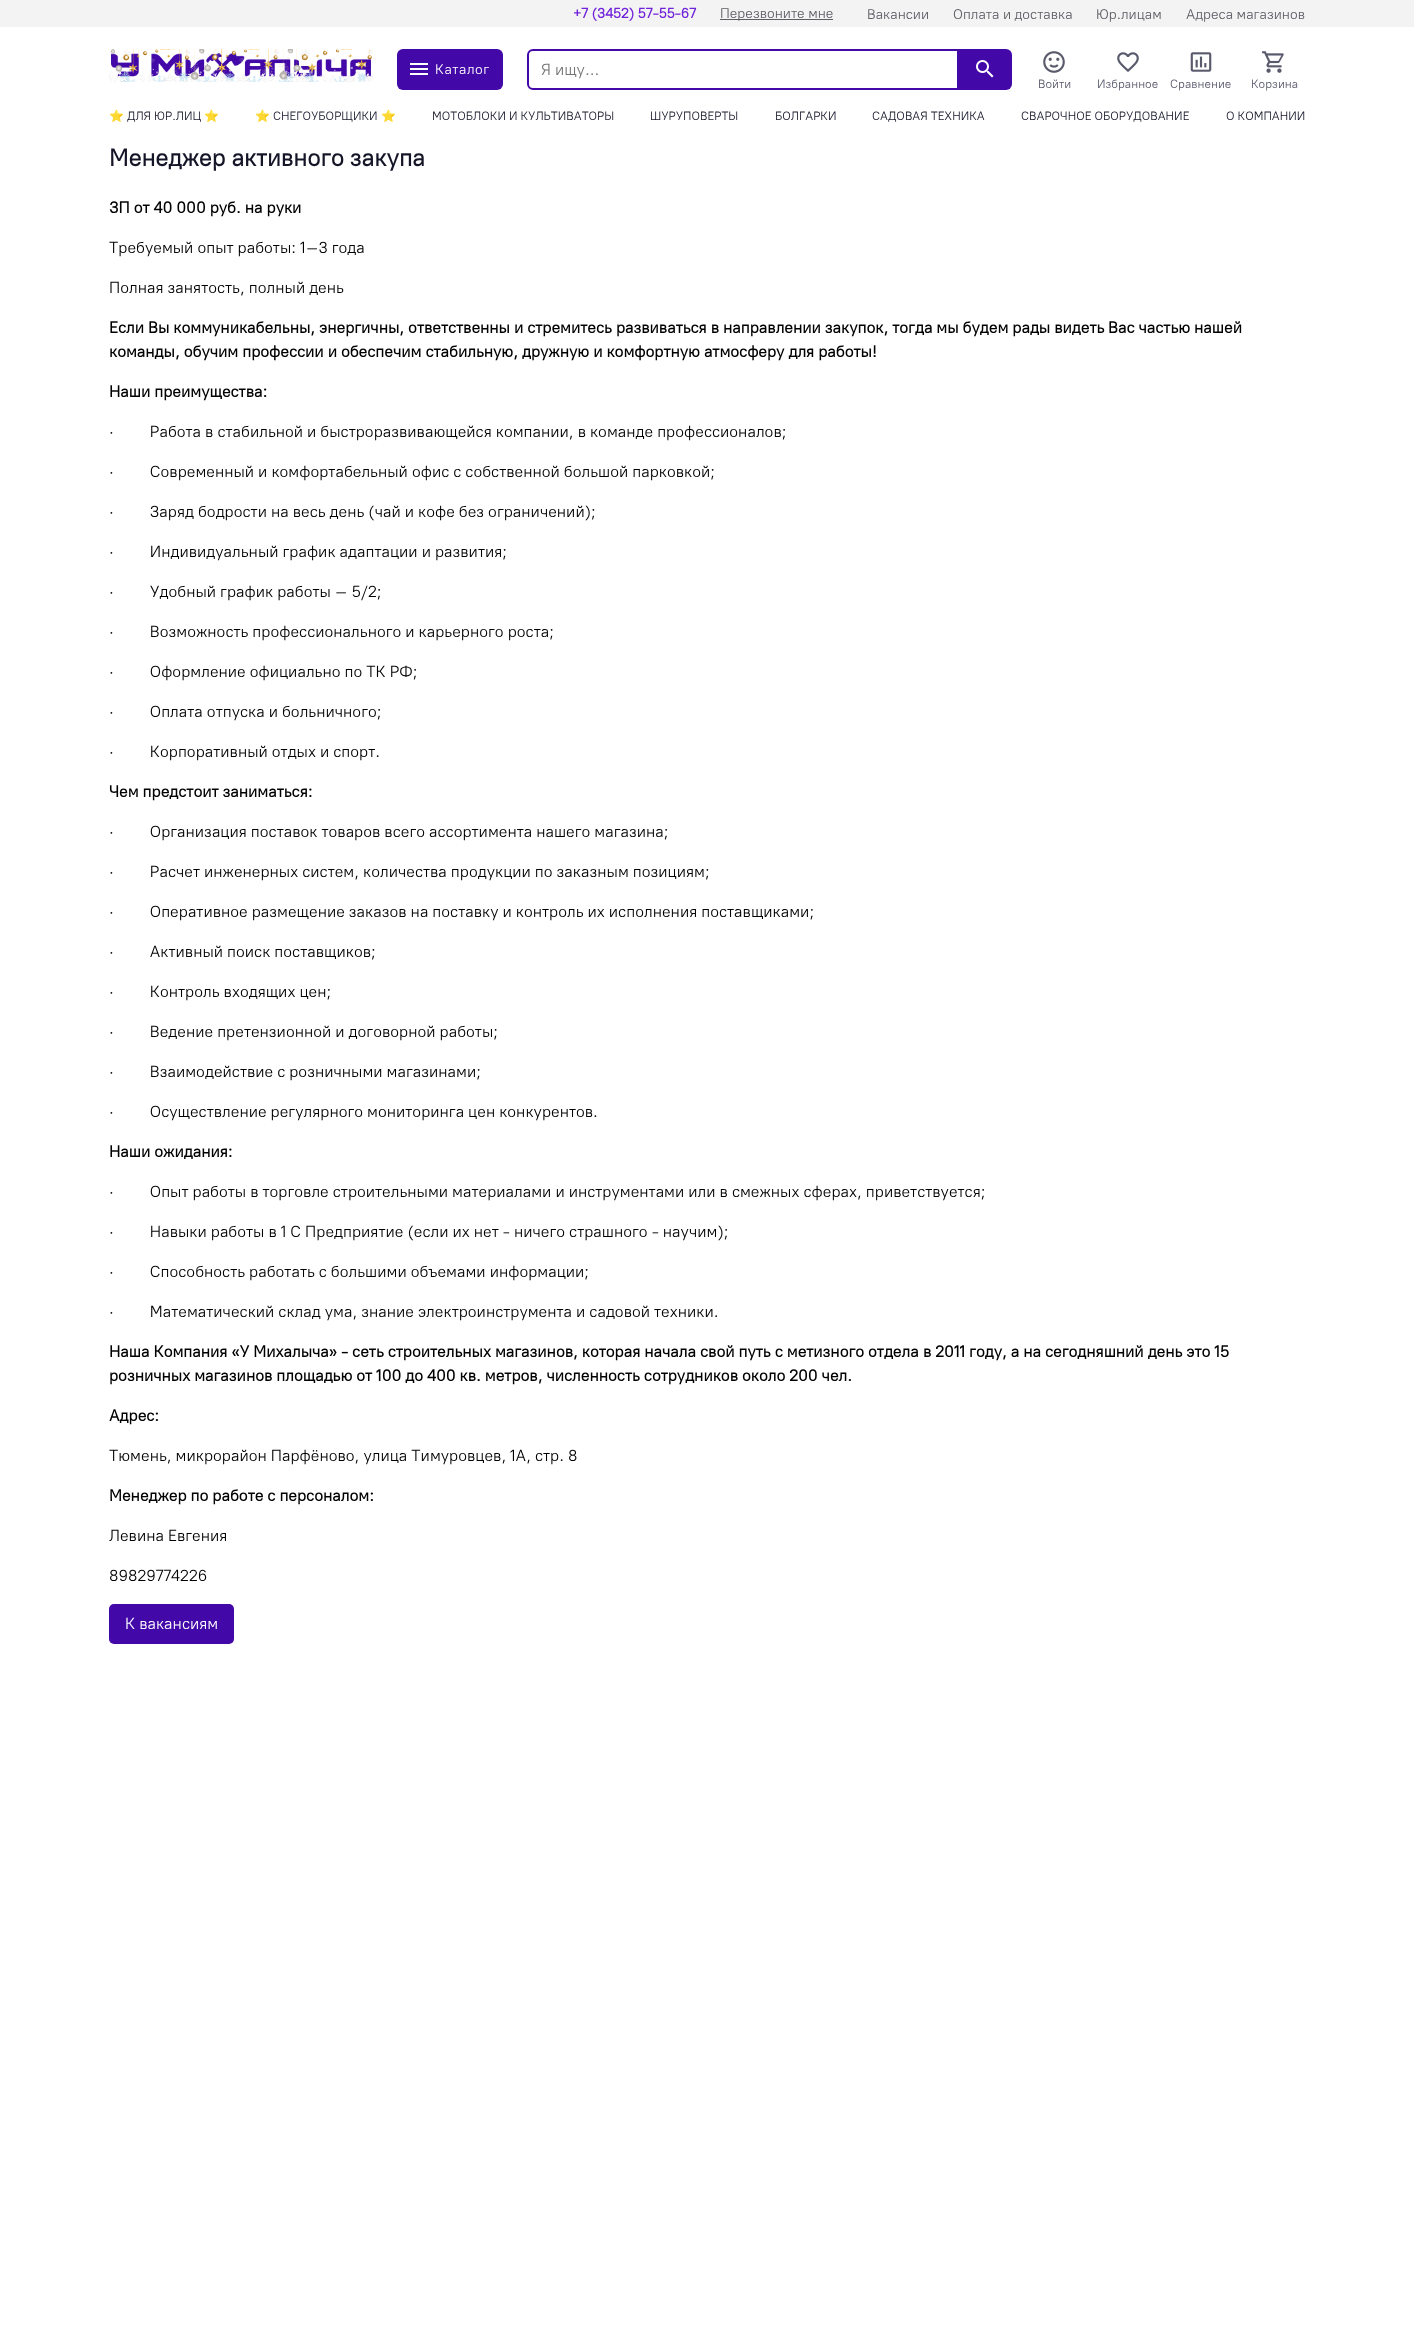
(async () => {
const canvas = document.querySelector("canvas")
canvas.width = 1414
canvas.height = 2326
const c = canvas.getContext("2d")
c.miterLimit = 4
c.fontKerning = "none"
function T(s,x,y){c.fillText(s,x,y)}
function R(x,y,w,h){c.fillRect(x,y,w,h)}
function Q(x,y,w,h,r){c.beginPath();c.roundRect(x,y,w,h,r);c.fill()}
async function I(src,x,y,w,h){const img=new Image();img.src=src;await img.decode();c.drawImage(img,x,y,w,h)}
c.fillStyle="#fff"
R(0,0,1414,2326)
c.fillStyle="#f3f3f3"
R(0,0,1414,27)
c.font="bold 14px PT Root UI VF"
c.fillStyle="#7123da"
T("+7 (3452) 57-55-67",573,18)
c.fillStyle="#5d5d64"
R(720,19,113,1)
c.font="14px PT Root UI VF"
T("Перезвоните мне",720,18)
T("Вакансии",867,19)
T("Оплата и доставка",953,19)
T("Юр.лицам",1096,19)
T("Адреса магазинов",1186,19)
await I("1.png",109,49,264,33)
c.fillStyle="#4208a8"
Q(397,49,106,41,6)
await I("2.png",410,63,18,12)
c.letterSpacing="0.5px"
c.fillStyle="#fff"
T("Каталог",435,74)
c.beginPath()
c.roundRect(528,50,430,39,[5,0,0,5])
c.strokeStyle="#4208a8"
c.lineWidth=2
c.stroke()
c.letterSpacing="0px"
c.font="16px PT Root UI VF"
c.fillStyle="#757575"
T("Я ищу...",541,75)
c.fillStyle="#4208a8"
c.beginPath()
c.roundRect(959,49,53,41,[0,6,6,0])
c.fill()
await I("3.png",976,60,18,18)
await I("4.png",1043,51,22,22)
c.font="12px PT Root UI VF"
c.fillStyle="#5a5a6d"
T("Войти",1038,88)
await I("5.png",1117,52,22,20)
T("Избранное",1097,88)
await I("6.png",1190,52,22,20)
T("Сравнение",1170,88)
await I("7.png",1262,51,22,22)
T("Корзина",1251,88)
c.font="12px Noto Color Emoji"
c.fillStyle="#151528"
T("⭐",109,120)
c.font="12px PT Root UI VF"
T("ДЛЯ ЮР.ЛИЦ",127,120)
c.font="12px Noto Color Emoji"
T("⭐",204,120)
T("⭐",255,120)
c.font="12px PT Root UI VF"
T("СНЕГОУБОРЩИКИ",273,120)
c.font="12px Noto Color Emoji"
T("⭐",381,120)
c.font="12px PT Root UI VF"
T("МОТОБЛОКИ И КУЛЬТИВАТОРЫ",432,120)
T("ШУРУПОВЕРТЫ",650,120)
T("БОЛГАРКИ",775,120)
T("САДОВАЯ ТЕХНИКА",872,120)
T("СВАРОЧНОЕ ОБОРУДОВАНИЕ",1021,120)
T("О КОМПАНИИ",1226,120)
c.font="bold 24px PT Root UI VF"
T("Менеджер активного закупа",109,166)
c.font="bold 16px PT Root UI VF"
c.fillStyle="#000"
T("ЗП от 40 000 руб. на руки",109,213)
c.font="16px PT Root UI VF"
T("Требуемый опыт работы: 1–3 года",109,253)
T("Полная занятость, полный день",109,293)
c.font="bold 16px PT Root UI VF"
T("Если Вы коммуникабельны, энергичны, ответственны и стремитесь развиваться в направлении закупок, тогда мы будем рады видеть",109,333)
T("Вас частью нашей",1108,333)
T("команды, обучим профессии и обеспечим стабильную, дружную и комфортную атмосферу для работы!",109,357)
T("Наши преимущества:",109,397)
c.font="16px PT Root UI VF"
T("·         Работа в стабильной и быстроразвивающейся компании, в команде профессионалов;",109,437)
T("·         Современный и комфортабельный офис с собственной большой парковкой;",109,477)
T("·         Заряд бодрости на весь день (чай и кофе без ограничений);",109,517)
T("·         Индивидуальный график адаптации и развития;",109,557)
T("·         Удобный график работы – 5/2;",109,597)
T("·         Возможность профессионального и карьерного роста;",109,637)
T("·         Оформление официально по ТК РФ;",109,677)
T("·         Оплата отпуска и больничного;",109,717)
T("·         Корпоративный отдых и спорт.",109,757)
c.font="bold 16px PT Root UI VF"
T("Чем предстоит заниматься:",109,797)
c.font="16px PT Root UI VF"
T("·         Организация поставок товаров всего ассортимента нашего магазина;",109,837)
T("·         Расчет инженерных систем, количества продукции по заказным позициям;",109,877)
T("·         Оперативное размещение заказов на поставку и контроль их исполнения поставщиками;",109,917)
T("·         Активный поиск поставщиков;",109,957)
T("·         Контроль входящих цен;",109,997)
T("·         Ведение претензионной и договорной работы;",109,1037)
T("·         Взаимодействие с розничными магазинами;",109,1077)
T("·         Осуществление регулярного мониторинга цен конкурентов.",109,1117)
c.font="bold 16px PT Root UI VF"
T("Наши ожидания:",109,1157)
c.font="16px PT Root UI VF"
T("·         Опыт работы в торговле строительными материалами и инструментами или в смежных сферах, приветствуется;",109,1197)
T("·         Навыки работы в 1 С Предприятие (если их нет - ничего страшного - научим);",109,1237)
T("·         Способность работать с большими объемами информации;",109,1277)
T("·         Математический склад ума, знание электроинструмента и садовой техники.",109,1317)
c.font="bold 16px PT Root UI VF"
T("Наша Компания «У Михалыча» - сеть строительных магазинов, которая начала свой путь с метизного отдела",109,1357)
T("в 2011 году, а на сегодняшний день это 15",923,1357)
T("розничных магазинов площадью от 100 до 400 кв. метров, численность сотрудников около 200 чел.",109,1381)
T("Адрес:",109,1421)
c.font="16px PT Root UI VF"
T("Тюмень, микрорайон Парфёново, улица Тимуровцев,",109,1461)
T("1А, стр. 8",510,1461)
c.font="bold 16px PT Root UI VF"
T("Менеджер по работе с персоналом:",109,1501)
c.font="16px PT Root UI VF"
T("Левина Евгения",109,1541)
T("89829774226",109,1581)
c.fillStyle="#4208a8"
Q(109,1604,125,40,5)
c.fillStyle="#fff"
T("К вакансиям",125,1629)
})()
